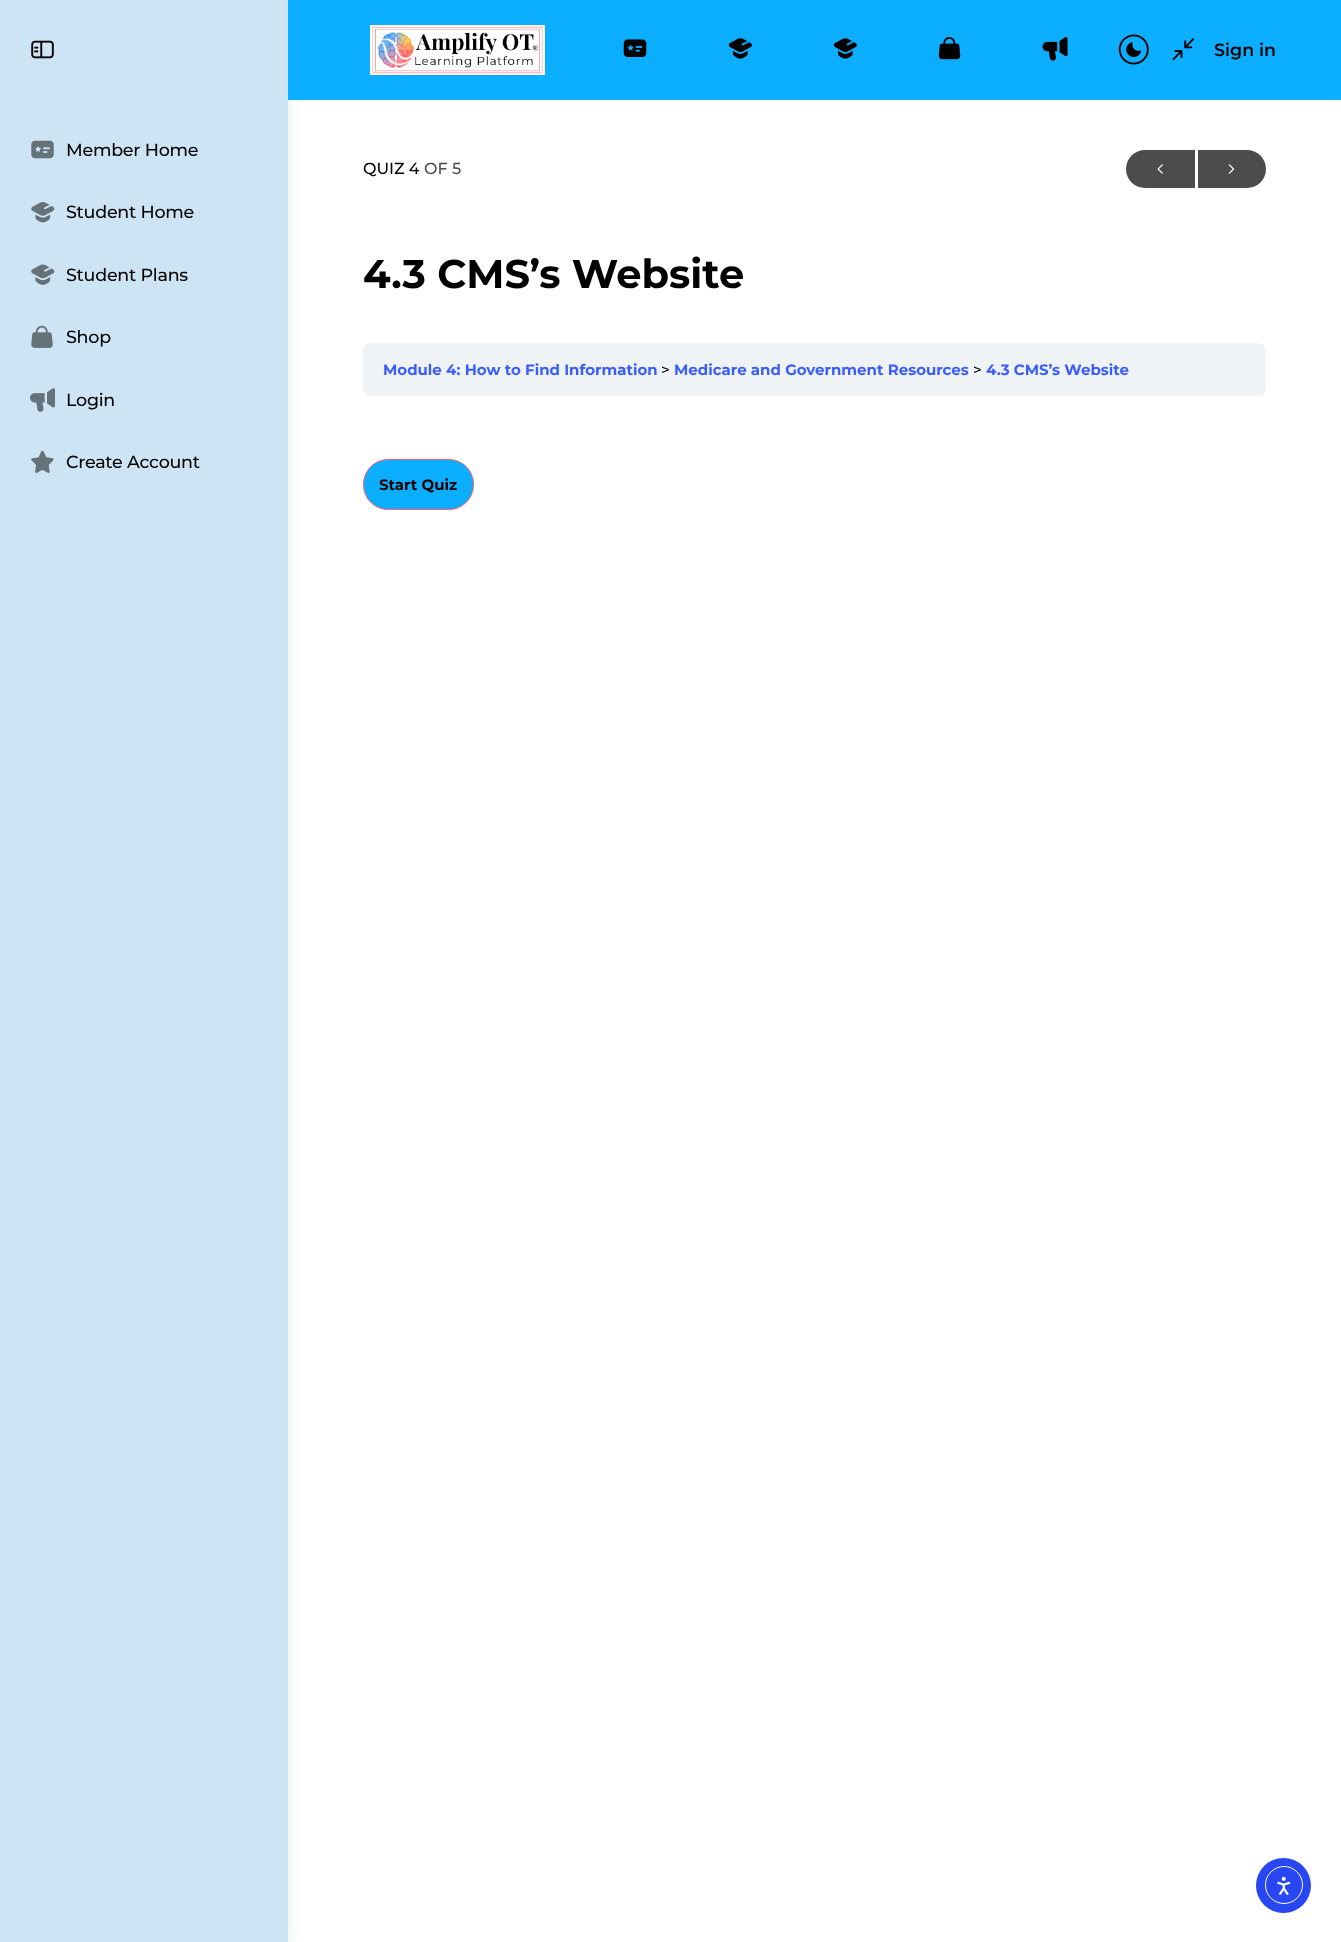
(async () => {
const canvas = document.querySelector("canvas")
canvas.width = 1341
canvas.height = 1942
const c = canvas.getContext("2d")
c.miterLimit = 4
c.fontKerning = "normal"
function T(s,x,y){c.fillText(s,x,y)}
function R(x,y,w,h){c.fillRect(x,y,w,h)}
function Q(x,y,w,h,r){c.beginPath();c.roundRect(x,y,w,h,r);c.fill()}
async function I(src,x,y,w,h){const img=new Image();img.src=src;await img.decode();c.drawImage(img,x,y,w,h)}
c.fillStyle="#fff"
R(0,0,1341,1942)
c.fillStyle="#122b461a"
c.filter="blur(8px)"
c.beginPath()
c.rect(0,4,288,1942)
c.fill()
c.filter="none"
c.fillStyle="#cde4f4"
R(0,0,288,1942)
await I("1.png",31,40,23,19)
await I("2.png",31,140,23,19)
c.letterSpacing="-0.25px"
c.font="500 17.5px Montserrat"
c.fillStyle="#000"
T("Member Home",66,156)
await I("3.png",31,202,24,21)
T("Student Home",66,218)
await I("4.png",31,264,24,21)
T("Student Plans",66,281)
await I("5.png",31,325,22,23)
T("Shop",66,343)
await I("6.png",30,388,25,24)
T("Login",66,406)
await I("7.png",31,450,23,23)
T("Create Account",66,468)
c.fillStyle="#0caeff"
R(288,0,1053,100)
await I("8.png",370,25,175,50)
await I("9.png",623,39,24,18)
await I("10.png",728,38,24,21)
await I("10.png",833,38,24,21)
await I("11.png",938,37,23,23)
await I("12.png",1042,37,26,24)
await I("13.png",1118,34,31,31)
await I("14.png",1172,38,23,23)
c.letterSpacing="0px"
c.font="600 17.5px Montserrat"
c.fillStyle="#000"
T("Sign in",1214,56)
c.font="500 16px Montserrat"
T("QUIZ 4",363,174)
c.fillStyle="#4c4c4c"
T("OF 5",424,174)
c.beginPath()
c.roundRect(1126,150,69,38,[19,0,0,19])
c.fill()
await I("15.png",1157,164,6,10)
c.beginPath()
c.roundRect(1198,150,68,38,[0,19,19,0])
c.fill()
await I("16.png",1228,164,7,10)
c.font="bold 40px Montserrat"
c.fillStyle="#000"
T("4.3 CMS’s Website",363,288)
c.fillStyle="#f0f3f6"
Q(363,343,903,53,8)
c.font="bold 15px Montserrat"
c.fillStyle="#385dff"
T("Module 4: How to Find Information",383,375)
c.font="500 15px Montserrat"
c.fillStyle="#000"
T(">",661,375)
c.font="bold 15px Montserrat"
c.fillStyle="#385dff"
T("Medicare and Government Resources",674,375)
c.font="500 15px Montserrat"
c.fillStyle="#000"
T(">",973,375)
c.font="bold 15px Montserrat"
c.fillStyle="#385dff"
T("4.3 CMS’s Website",986,375)
c.fillStyle="#0caeff"
c.beginPath()
c.roundRect(363.5,459.5,110,50,24.5)
c.fill()
c.strokeStyle="#ff616b"
c.stroke()
c.fillStyle="#000"
T("Start Quiz",379,490)
c.fillStyle="#2847f3"
c.beginPath()
c.arc(1283.5,1885.5,27.5,0,7)
c.fill()
c.beginPath()
c.arc(1284,1885,18.5,0,7)
c.strokeStyle="#fff"
c.stroke()
await I("17.png",1277,1876,14,19)
})()
